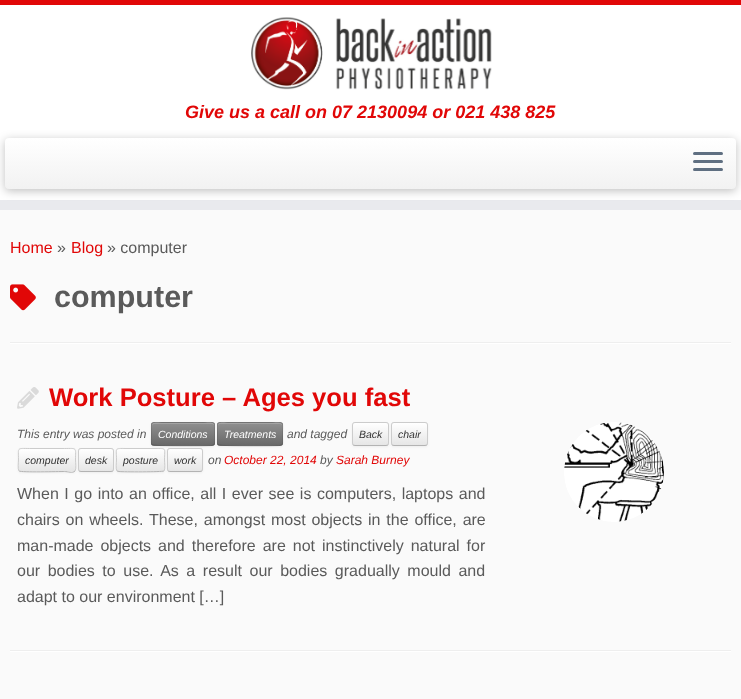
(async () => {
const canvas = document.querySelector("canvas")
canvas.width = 741
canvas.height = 699
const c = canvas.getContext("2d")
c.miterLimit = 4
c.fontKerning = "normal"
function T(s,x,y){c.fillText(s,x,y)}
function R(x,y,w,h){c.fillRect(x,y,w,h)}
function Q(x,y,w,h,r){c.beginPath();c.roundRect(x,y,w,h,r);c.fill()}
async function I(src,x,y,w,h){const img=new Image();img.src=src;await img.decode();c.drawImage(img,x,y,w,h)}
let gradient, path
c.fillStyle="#fafafa"
R(0,0,741,699)
c.fillStyle="#fff"
R(0,5,741,195)
c.fillStyle="#e10707"
R(0,0,741,5)
c.fillStyle="#e9eaee"
R(0,200,741,10)
await I("1.png",251,17,241,73)
c.font="italic bold 18px Liberation Sans"
c.fillStyle="#e10707"
T("Give us a call on 07 2130094 or 021 438 825",185,118)
c.fillStyle="#00000040"
c.filter="blur(5px)"
c.beginPath()
c.roundRect(5,140,731,51,4)
c.fill()
c.filter="none"
gradient = c.createLinearGradient(371,138,371,189)
gradient.addColorStop(0,"#fff")
gradient.addColorStop(1,"#f2f2f2")
c.fillStyle = gradient
Q(5,138,731,51,4)
c.fillStyle="#5f6f81"
Q(693,152,30,3,1.5)
Q(693,160,30,3,1.5)
Q(693,168,30,3,1.5)
c.font="16px Liberation Sans"
c.fillStyle="#e10707"
T("Home",10,253)
c.fillStyle="#5a5a5a"
T("»",57,253)
c.fillStyle="#e10707"
T("Blog",71,253)
c.fillStyle="#5a5a5a"
T("» computer",107,253)
await I("2.png",10,284,26,27)
c.font="bold 30.5px Liberation Sans"
T("computer",54,307)
c.fillStyle="#eee"
R(10,342,721,1)
c.fillStyle="#fff"
R(10,343,721,1)
await I("3.png",17,387,22,22)
c.font="bold 25.6px Liberation Sans"
c.fillStyle="#e10707"
T("Work Posture – Ages you fast",49,406)
c.font="italic 12px Liberation Sans"
c.fillStyle="#5a5a5a"
T("This entry was posted in",17,438)
c.fillStyle="#0000000d"
c.filter="blur(1px)"
c.beginPath()
c.roundRect(151,423,64,24,3)
c.fill()
c.filter="none"
c.fillStyle="#808080"
Q(151,422,64,24,3)
c.save()
c.beginPath()
c.roundRect(151,422,64,24,3)
c.clip()
gradient = c.createLinearGradient(183,423,183,445)
gradient.addColorStop(0,"#8f8f8f")
gradient.addColorStop(1,"#696969")
c.fillStyle = gradient
R(151,423,64,22)
c.restore()
c.fillStyle="#ffffff33"
path = new Path2D("M154 424h58c1 0 2 1 2 2c0-6-8-3-12-3h-38c-4 0-12-3-12 3c0-1 1-2 2-2z")
c.fill(path)
path = new Path2D("M214 445l-2 .5c-5 .5-58.5 .5-59.5-.5h-.5")
c.strokeStyle="#00000040"
c.stroke(path)
path = new Path2D("M152 445c-1.5-2-.5-9-.5-11c0-13.5-2-11.5 12-11.5h39c14 0 12-2 12 11.5c0 2 1 9-.5 11")
c.strokeStyle="#0000001a"
c.stroke(path)
c.font="italic 10.5px Liberation Sans"
c.fillStyle="#fff"
T("Conditions",158,438)
c.fillStyle="#0000000d"
c.filter="blur(1px)"
c.beginPath()
c.roundRect(217,423,66,24,3)
c.fill()
c.filter="none"
c.fillStyle="#808080"
Q(217,422,66,24,3)
c.save()
c.beginPath()
c.roundRect(217,422,66,24,3)
c.clip()
gradient = c.createLinearGradient(250,423,250,445)
gradient.addColorStop(0,"#8f8f8f")
gradient.addColorStop(1,"#696969")
c.fillStyle = gradient
R(217,423,66,22)
c.restore()
c.fillStyle="#ffffff33"
path = new Path2D("M220 424h60c1 0 2 1 2 2c0-6-8-3-12-3h-40c-4 0-12-3-12 3c0-1 1-2 2-2z")
c.fill(path)
path = new Path2D("M282 445l-2 .5c-5 .5-60.5 .5-61.5-.5h-.5")
c.strokeStyle="#00000040"
c.stroke(path)
path = new Path2D("M218 445c-1.5-2-.5-9-.5-11c0-13.5-2-11.5 12.5-11.5h40c16 0 12.5-1.5 12.5 14.5c0 2 1 6-.5 8")
c.strokeStyle="#0000001a"
c.stroke(path)
c.fillStyle="#fff"
T("Treatments",224,438)
c.font="italic 12px Liberation Sans"
c.fillStyle="#5a5a5a"
T("and tagged",287,438)
c.fillStyle="#0000000d"
c.filter="blur(1px)"
c.beginPath()
c.roundRect(352,423,37,24,3)
c.fill()
c.filter="none"
c.save()
c.beginPath()
c.roundRect(352,422,37,24,3)
c.clip()
gradient = c.createLinearGradient(371,423,371,445)
gradient.addColorStop(0,"#fff")
gradient.addColorStop(1,"#e6e6e6")
c.fillStyle = gradient
R(352,423,37,22)
c.restore()
path = new Path2D("M388 445c-.5 0-1.5 .5-2 .5h-31c-.5 0-1.5-.5-2-.5")
c.strokeStyle="#b3b3b3"
c.stroke(path)
path = new Path2D("M353 445c0-.5-.5-1.5-.5-2v-18c0-.5 .5-1.5 .5-2c.5 0 1.5-.5 2-.5h31c.5 0 1.5 .5 2 .5c0 .5 .5 1.5 .5 2v18c0 .5-.5 1.5-.5 2")
c.strokeStyle="#ccc"
c.stroke(path)
c.font="italic 10.5px Liberation Sans"
c.fillStyle="#333"
T("Back",359,438)
c.fillStyle="#0000000d"
c.filter="blur(1px)"
c.beginPath()
c.roundRect(391,423,37,24,3)
c.fill()
c.filter="none"
c.save()
c.beginPath()
c.roundRect(391,422,37,24,3)
c.clip()
gradient = c.createLinearGradient(410,423,410,445)
gradient.addColorStop(0,"#fff")
gradient.addColorStop(1,"#e6e6e6")
c.fillStyle = gradient
R(391,423,37,22)
c.restore()
path = new Path2D("M427 445c-.5 0-1.5 .5-2 .5h-31c-.5 0-1.5-.5-2-.5")
c.strokeStyle="#b3b3b3"
c.stroke(path)
path = new Path2D("M392 445c0-.5-.5-1.5-.5-2v-18c0-.5 .5-1.5 .5-2c.5 0 1.5-.5 2-.5h31c.5 0 1.5 .5 2 .5c0 .5 .5 1.5 .5 2v18c0 .5-.5 1.5-.5 2")
c.strokeStyle="#ccc"
c.stroke(path)
c.fillStyle="#333"
T("chair",398,438)
c.fillStyle="#0000000d"
c.filter="blur(1px)"
c.beginPath()
c.roundRect(18,449,58,24,3)
c.fill()
c.filter="none"
c.fillStyle="#f5f5f5"
Q(18,448,58,24,3)
c.save()
c.beginPath()
c.roundRect(18,448,58,24,3)
c.clip()
gradient = c.createLinearGradient(47,449,47,471)
gradient.addColorStop(0,"#fff")
gradient.addColorStop(1,"#e6e6e6")
c.fillStyle = gradient
R(18,449,58,22)
c.restore()
c.fillStyle="#fefefe"
path = new Path2D("M21 450h52c1 0 2 1 2 2c0-5-7-3-11-3h-34c-4 0-11-2-11 3c0-1 1-2 2-2z")
c.fill(path)
path = new Path2D("M75 471c-2.5 2.5-7 .5-10.5 .5c-5.5 0-43.5 1-45.5-.5")
c.strokeStyle="#b3b3b3"
c.stroke(path)
path = new Path2D("M19 471c-1.5-2-.5-9-.5-11c0-13-2-11.5 11-11.5h35c13 0 11-1.5 11 11.5c0 2 1 9-.5 11")
c.strokeStyle="#ccc"
c.stroke(path)
c.fillStyle="#333"
T("computer",25,464)
c.fillStyle="#0000000d"
c.filter="blur(1px)"
c.beginPath()
c.roundRect(78,449,36,24,3)
c.fill()
c.filter="none"
c.save()
c.beginPath()
c.roundRect(78,448,36,24,3)
c.clip()
gradient = c.createLinearGradient(96,449,96,471)
gradient.addColorStop(0,"#fff")
gradient.addColorStop(1,"#e6e6e6")
c.fillStyle = gradient
R(78,449,36,22)
c.restore()
path = new Path2D("M113 471c-.5 0-1.5 .5-2 .5h-30c-.5 0-1.5-.5-2-.5")
c.strokeStyle="#b3b3b3"
c.stroke(path)
path = new Path2D("M79 471c0-.5-.5-1.5-.5-2v-18c0-.5 .5-1.5 .5-2c.5 0 1.5-.5 2-.5h30c.5 0 1.5 .5 2 .5c0 .5 .5 1.5 .5 2v18c0 .5-.5 1.5-.5 2")
c.strokeStyle="#ccc"
c.stroke(path)
c.fillStyle="#333"
T("desk",85,464)
c.fillStyle="#0000000d"
c.filter="blur(1px)"
c.beginPath()
c.roundRect(116,449,49,24,3)
c.fill()
c.filter="none"
c.fillStyle="#f5f5f5"
Q(116,448,49,24,3)
c.save()
c.beginPath()
c.roundRect(116,448,49,24,3)
c.clip()
gradient = c.createLinearGradient(141,449,141,471)
gradient.addColorStop(0,"#fff")
gradient.addColorStop(1,"#e6e6e6")
c.fillStyle = gradient
R(116,449,49,22)
c.restore()
c.fillStyle="#fefefe"
path = new Path2D("M119 450h43c1 0 2 1 2 2c0-5-5-3-9-3h-29c-4 0-9-2-9 3c0-1 1-2 2-2z")
c.fill(path)
path = new Path2D("M164 471c-1.5 1-41 1-45 .5l-2-.5")
c.strokeStyle="#b3b3b3"
c.stroke(path)
path = new Path2D("M117 471c-1.5-2-.5-9-.5-11c0-12.5-2.5-11.5 9.5-11.5h29c12 0 9.5-1 9.5 11.5c0 2 1 9-.5 11")
c.strokeStyle="#ccc"
c.stroke(path)
c.fillStyle="#333"
T("posture",123,464)
c.fillStyle="#0000000d"
c.filter="blur(1px)"
c.beginPath()
c.roundRect(167,449,36,24,3)
c.fill()
c.filter="none"
c.save()
c.beginPath()
c.roundRect(167,448,36,24,3)
c.clip()
gradient = c.createLinearGradient(185,449,185,471)
gradient.addColorStop(0,"#fff")
gradient.addColorStop(1,"#e6e6e6")
c.fillStyle = gradient
R(167,449,36,22)
c.restore()
path = new Path2D("M202 471c-.5 0-1.5 .5-2 .5h-30c-.5 0-1.5-.5-2-.5")
c.strokeStyle="#b3b3b3"
c.stroke(path)
path = new Path2D("M168 471c0-.5-.5-1.5-.5-2v-18c0-.5 .5-1.5 .5-2c.5 0 1.5-.5 2-.5h30c.5 0 1.5 .5 2 .5c0 .5 .5 1.5 .5 2v18c0 .5-.5 1.5-.5 2")
c.strokeStyle="#ccc"
c.stroke(path)
c.fillStyle="#333"
T("work",174,464)
c.font="italic 12px Liberation Sans"
c.fillStyle="#5a5a5a"
T("on",208,464)
c.fillStyle="#e10707"
T("October 22, 2014",224,464)
c.fillStyle="#5a5a5a"
T("by",320,464)
c.fillStyle="#e10707"
T("Sarah Burney",336,464)
c.wordSpacing="1.1px"
c.font="16px Liberation Sans"
c.fillStyle="#5a5a5a"
T("When I go into an office, all I ever see is computers, laptops and",17,499)
c.wordSpacing="1.4px"
T("chairs on wheels. These, amongst most objects in the office, are",17,525)
c.wordSpacing="2.5px"
T("man-made objects and therefore are not instinctively natural for",17,551)
c.wordSpacing="3.1px"
T("our bodies to use. As a result our bodies gradually mould and",17,576)
c.wordSpacing="0px"
T("adapt to our environment […]",17,602)
await I("4.png",564,422,100,100)
c.save()
c.beginPath()
c.rect(548,374,131,200)
c.clip()
c.beginPath()
c.arc(614,472,97,0,7)
c.strokeStyle="#fafafa"
c.lineWidth=94
c.stroke()
c.beginPath()
c.arc(614,472,97,0,7)
c.stroke()
c.restore()
c.fillStyle="#eee"
R(10,650,721,1)
c.fillStyle="#fff"
R(10,651,721,1)
})()
